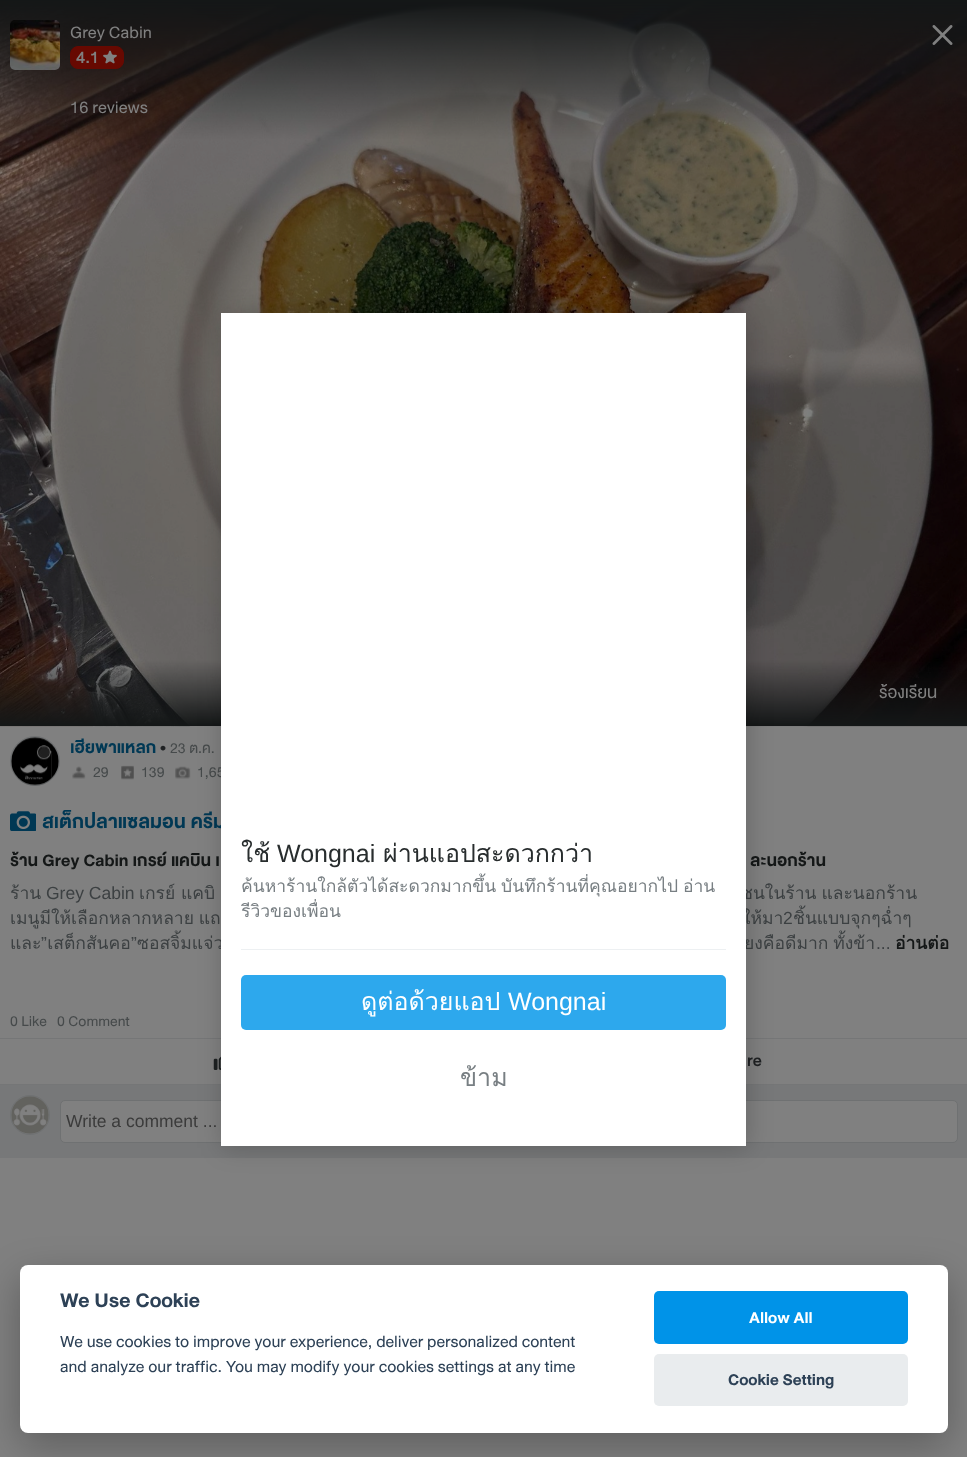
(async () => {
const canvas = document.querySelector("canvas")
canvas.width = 967
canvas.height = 1457
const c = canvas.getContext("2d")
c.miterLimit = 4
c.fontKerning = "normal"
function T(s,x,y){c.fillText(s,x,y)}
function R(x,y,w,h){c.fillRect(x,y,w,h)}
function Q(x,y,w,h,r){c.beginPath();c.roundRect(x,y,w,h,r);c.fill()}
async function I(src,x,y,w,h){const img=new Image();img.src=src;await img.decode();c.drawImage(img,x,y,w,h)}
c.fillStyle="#808080"
R(0,0,967,1457)
await I("1.png",0,0,967,727)
await I("2.png",10,20,50,50)
c.font="17.5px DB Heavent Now"
T("Grey Cabin",70,38)
c.fillStyle="#670901"
c.beginPath()
c.roundRect(70.5,46.5,53,22,7.5)
c.fill()
c.strokeStyle="#670901"
c.stroke()
c.font="500 17.5px DB Heavent Now"
c.fillStyle="#808080"
T("4.1",76,63)
await I("3.png",103,50,14,14)
c.font="17.5px DB Heavent Now"
T("16 reviews",70,113)
T("ร้องเรียน",879,698)
await I("4.png",932,25,21,20)
c.fillStyle="#777879"
c.beginPath()
c.arc(35,761,24.5,0,7)
c.fill()
c.strokeStyle="#6f7172"
c.stroke()
await I("5.png",11,737,48,49)
c.font="bold 17.5px DB Heavent Now"
c.fillStyle="#003854"
T("เฮียพาแหลก",70,753)
c.font="17.5px DB Heavent Now"
c.fillStyle="#1f2123"
T("•",160,753)
c.font="15px DB Heavent Now"
c.fillStyle="#464a4b"
T("23 ต.ค.",170,753)
await I("6.png",72,766,14,13)
T("29",93,777)
await I("7.png",121,765,13,15)
T("139",141,777)
await I("8.png",175,766,16,13)
T("1,65",197,777)
await I("9.png",10,811,26,20)
c.font="bold 20px DB Heavent Now"
c.fillStyle="#003854"
T("สเต็กปลาแซลมอน ครีม",42,828)
c.font="bold 17.5px DB Heavent Now"
c.fillStyle="#141717"
T("ร้าน Grey Cabin เกรย์ แคบิน เ",10,866)
T("ละนอกร้าน",750,866)
c.font="17.5px Loma"
c.fillStyle="#3c4042"
T("ร้าน",10,899)
c.font="17.5px Liberation Sans"
T("Grey Cabin",46,899)
c.font="17.5px Loma"
T("เกรย์",139,899)
T("แคบิ",181,899)
c.wordSpacing="-1px"
T("ซนในร้าน และนอกร้าน",741,899)
T("เมนูมีให้เลือกหลากหลาย แถ",10,924)
c.wordSpacing="0px"
T("ให้มา",742,924)
c.font="17.5px Liberation Sans"
T("2",783,924)
c.font="17.5px Loma"
T("ชิ้นแบบจุกๆฉ่ำๆ",793,924)
T("และ เสต็กสันคอ",10,949)
c.wordSpacing="-1px"
T("ซอสจิ้มแจ่ว",137,949)
T("ยงคือดีมาก ทั้งข้า",744,949)
c.wordSpacing="0px"
c.font="bold 17.5px Loma"
c.fillStyle="#141717"
T("อ่านต่อ",895,949)
c.font="17.5px Liberation Sans"
c.fillStyle="#3c4042"
T("”",41,949)
T("”",131,949)
T("...",876,949)
c.font="15px DB Heavent Now"
c.fillStyle="#464a4b"
T("0 Like",10,1026)
T("0 Comment",57,1026)
c.fillStyle="#757677"
R(0,1038,967,47)
c.fillStyle="#808080"
R(0,1039,221,45)
await I("10.png",213,1056,8,14)
R(746,1039,221,45)
c.font="500 17.5px DB Heavent Now"
c.fillStyle="#1f2123"
T("re",747,1066)
c.fillStyle="#777879"
R(0,1085,967,73)
c.beginPath()
c.arc(30,1115,19.5,0,7)
c.stroke()
await I("11.png",11,1096,38,38)
c.fillStyle="#808080"
c.beginPath()
c.roundRect(60.5,1100.5,897,42,4.5)
c.fill()
c.stroke()
c.font="17.5px Liberation Sans"
c.fillStyle="#3b3b3b"
T("Write a comment ...",66,1127)
c.fillStyle="#00000033"
c.filter="blur(12.5px)"
c.beginPath()
c.rect(223,314,525,834)
c.fill()
c.filter="none"
c.fillStyle="#fff"
R(221,313,525,833)
c.font="25px Loma"
c.fillStyle="#282d2e"
T("ใช้",241,862)
c.font="25px Liberation Sans"
T("Wongnai",277,862)
c.font="25px Loma"
T("ผ่านแอปสะดวกกว่า",383,862)
c.wordSpacing="-1px"
c.font="17.5px Loma"
c.fillStyle="#787f83"
T("ค้นหาร้านใกล้ตัวได้สะดวกมากขึ้น บันทึกร้านที่คุณอยากไป อ่าน",241,892)
c.wordSpacing="0px"
T("รีวิวของเพื่อน",241,917)
c.fillStyle="#edf0f2"
R(241,949,485,1)
c.fillStyle="#2da8ed"
Q(241,975,485,55,5)
c.font="25px Loma"
c.fillStyle="#fff"
T("ดูต่อด้วยแอป",361,1010)
c.font="25px Liberation Sans"
T("Wongnai",508,1010)
c.font="25px Loma"
c.fillStyle="#787f83"
T("ข้าม",460,1086)
c.fillStyle="#02020347"
c.filter="blur(19px)"
c.beginPath()
c.roundRect(20,1278,928,167,8)
c.fill()
c.filter="none"
c.fillStyle="#fff"
Q(20,1265,928,168,8)
c.font="bold 21px DB Heavent Now"
c.fillStyle="#2d4156"
T("We Use Cookie",60,1307)
c.font="17px DB Heavent Now"
T("We use cookies to improve your experience, deliver personalized content",60,1347)
T("and analyze our traffic. You may modify your cookies settings at any time",60,1372)
c.fillStyle="#0093e8"
Q(654,1291,254,53,5)
c.font="bold 16.5px DB Heavent Now"
c.fillStyle="#fff"
T("Allow All",749,1323)
c.fillStyle="#e9ecee"
Q(654,1354,254,52,5)
c.fillStyle="#2d4156"
T("Cookie Setting",728,1385)
})()
